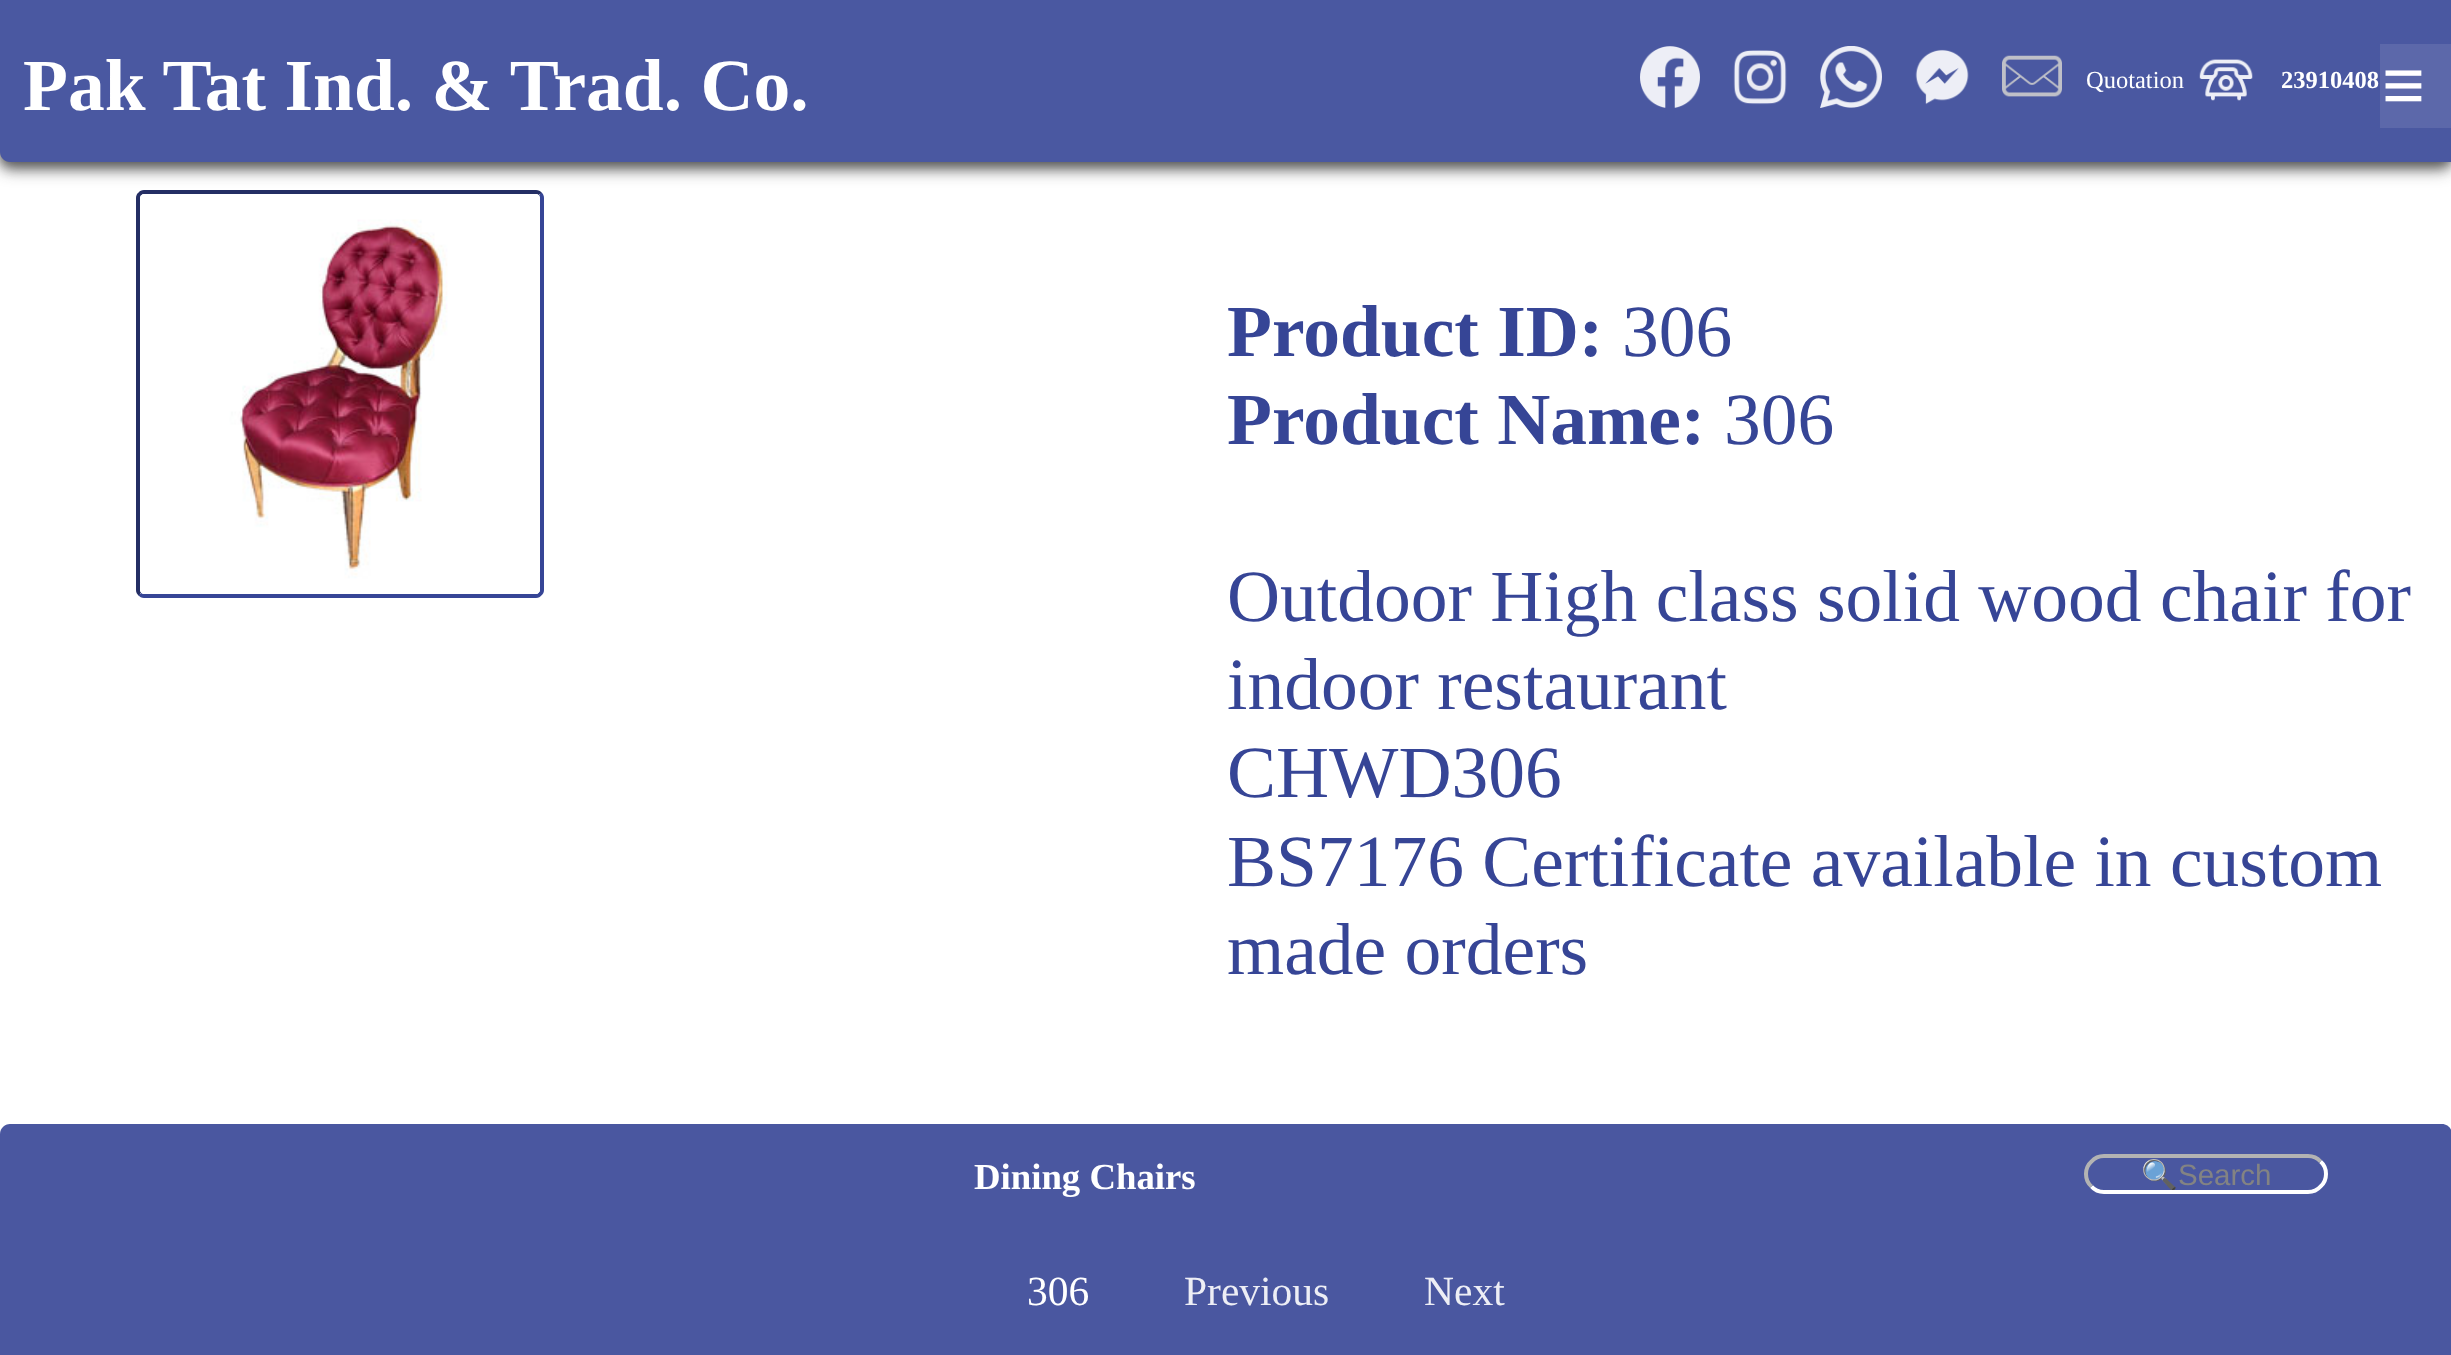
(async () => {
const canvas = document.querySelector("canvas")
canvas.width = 2451
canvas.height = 1355
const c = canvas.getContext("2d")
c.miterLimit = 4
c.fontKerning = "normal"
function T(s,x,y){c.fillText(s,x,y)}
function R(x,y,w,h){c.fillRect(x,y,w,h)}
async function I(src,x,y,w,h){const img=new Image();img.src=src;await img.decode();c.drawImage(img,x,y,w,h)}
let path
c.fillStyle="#fff"
R(0,0,2451,1355)
c.fillStyle="#1a1a1a80"
c.filter="blur(6px)"
c.beginPath()
c.roundRect(0,4,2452,162,10)
c.fill()
c.filter="none"
path = new Path2D("M540 194c1.5 1 2 2.5 2 4v392c0 1.5-.5 3-2 4c-1 1.5-2.5 2-4 2h-392c-1.5 0-3-.5-4-2")
c.strokeStyle="#364596"
c.lineWidth=4
c.stroke(path)
path = new Path2D("M140 594c-1.5-1-2-2.5-2-4v-392c0-1.5 .5-3 2-4c1-1.5 2.5-2 4-2h392c1.5 0 3 .5 4 2")
c.strokeStyle="#242e64"
c.stroke(path)
await I("7.png",140,194,400,400)
c.filter="blur(8px)"
c.beginPath()
c.roundRect(0,8,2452,162,10)
c.fill()
c.filter="none"
c.fillStyle="#4a58a1"
path = new Path2D("M0 0h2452v152c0 5.5-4.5 10-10 10h-2432c-5.5 0-10-4.5-10-10z")
c.fill(path)
c.font="bold 73.5px Liberation Serif"
c.fillStyle="#fff"
T("Pak Tat Ind. & Trad. Co.",23,110)
await I("1.png",1640,46,60,62)
await I("2.png",1733,50,54,55)
await I("3.png",1820,46,62,62)
await I("4.png",1915,49,54,56)
await I("5.png",2002,55,60,42)
c.font="24.5px Liberation Serif"
T("Quotation",2086,88)
await I("6.png",2199,59,54,42)
c.font="bold 24.5px Liberation Serif"
T("23910408",2281,88)
c.fillStyle="#4a58a1"
R(2443,156,8,6)
c.fillStyle="#5c68aa"
R(2380,44,71,84)
c.font="bold 73.5px Liberation Sans"
c.fillStyle="#fff"
T("≡",2382,110)
c.font="bold 73.5px Liberation Serif"
c.fillStyle="#364596"
T("Product ID:",1227,356)
c.font="73.5px Liberation Serif"
T("306",1622,356)
c.font="bold 73.5px Liberation Serif"
T("Product Name:",1227,444)
c.font="73.5px Liberation Serif"
T("306",1724,444)
T("Outdoor High class solid wood chair for",1227,621)
T("indoor restaurant",1227,709)
T("CHWD306",1227,797)
T("BS7176 Certificate available in custom",1227,886)
T("made orders",1227,974)
c.fillStyle="#364596e6"
path = new Path2D("M10 1124h2432c5.5 0 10 4.5 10 10v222h-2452v-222c0-5.5 4.5-10 10-10z")
c.fill(path)
c.font="bold 36.75px Liberation Serif"
c.fillStyle="#fff"
T("Dining Chairs",974,1189)
path = new Path2D("M2320.5 1161.5c3.5 3 5.5 7.5 5.5 12.5c0 5-2 9.5-5.5 12.5c-3 3.5-7.5 5.5-12.5 5.5h-204c-5 0-9.5-2-12.5-5.5")
c.strokeStyle="#fff"
c.stroke(path)
path = new Path2D("M2091.5 1186.5c-3.5-3-5.5-7.5-5.5-12.5c0-5 2-9.5 5.5-12.5c3-3.5 7.5-5.5 12.5-5.5h204c5 0 9.5 2 12.5 5.5")
c.strokeStyle="#b3b3b3"
c.stroke(path)
c.save()
c.beginPath()
c.roundRect(2088,1158,236,32,16)
c.clip()
c.font="29.5px Noto Color Emoji"
c.fillStyle="#838383"
T("🔍",2141,1185)
c.restore()
c.font="29.5px Liberation Sans"
c.fillStyle="#838383"
T("Search",2178,1185)
c.font="41.5px Liberation Serif"
c.fillStyle="#fff"
T("306",1027,1305)
c.fillStyle="#edeef5"
T("Previous",1184,1305)
T("Next",1424,1305)
})()
